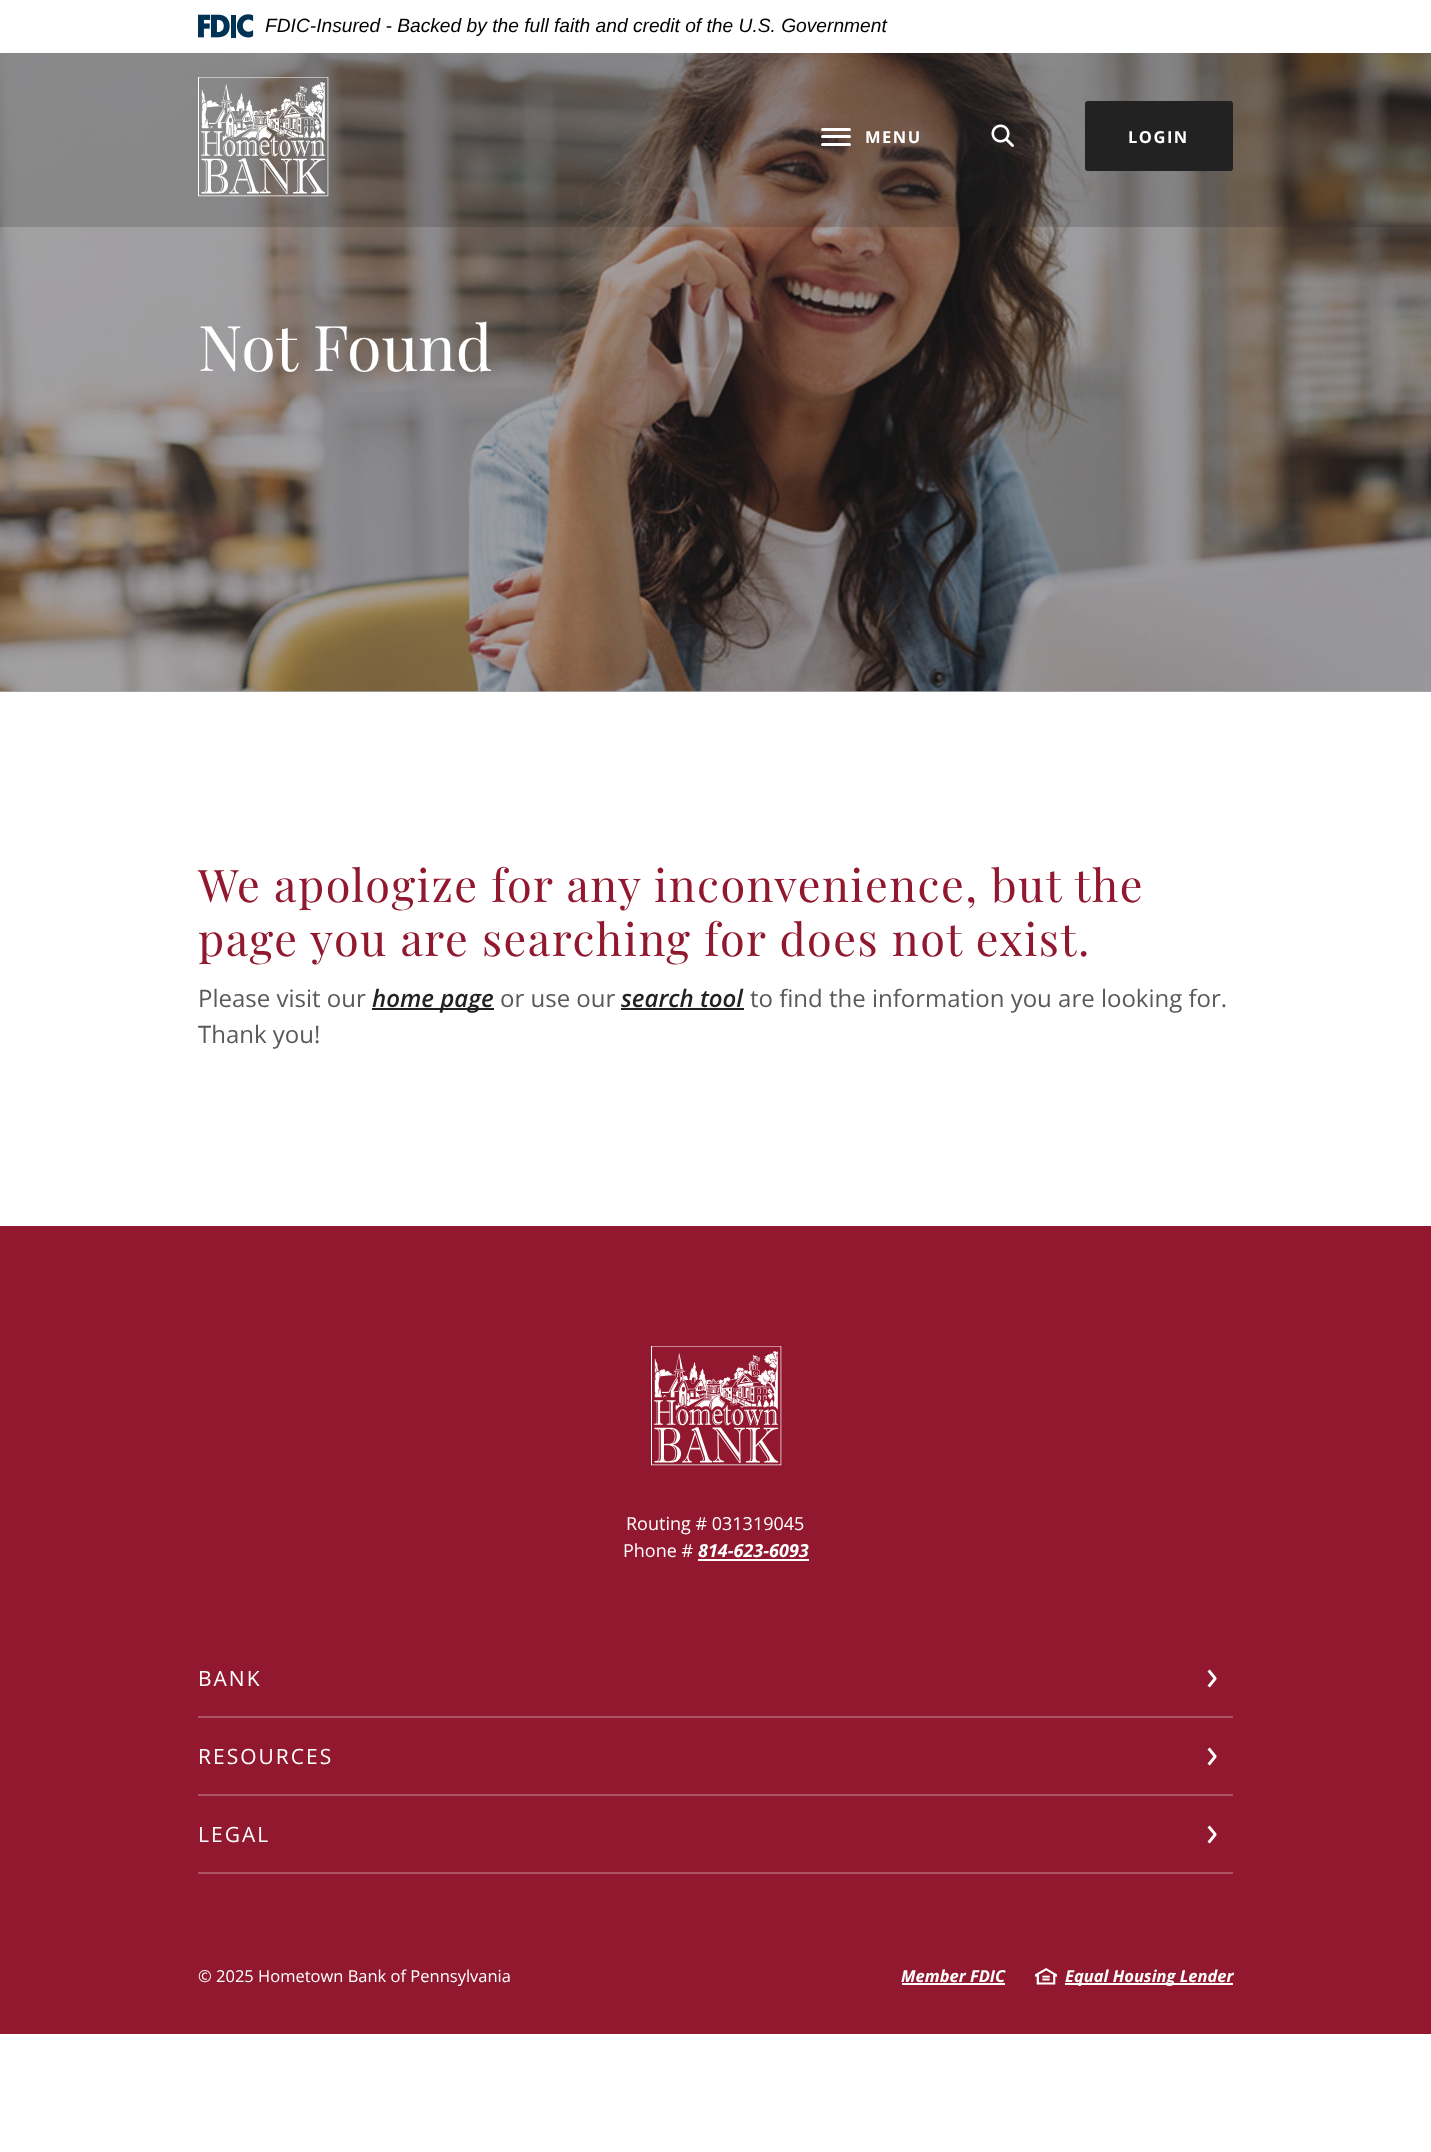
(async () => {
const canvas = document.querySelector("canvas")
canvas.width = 1431
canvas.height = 2152
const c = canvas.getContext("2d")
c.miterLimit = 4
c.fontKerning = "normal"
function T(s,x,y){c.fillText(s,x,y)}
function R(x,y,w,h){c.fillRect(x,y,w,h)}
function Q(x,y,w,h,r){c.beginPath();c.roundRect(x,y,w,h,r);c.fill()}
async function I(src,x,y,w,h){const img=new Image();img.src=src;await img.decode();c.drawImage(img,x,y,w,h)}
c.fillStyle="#fff"
R(0,0,1431,2152)
c.fillStyle="#a9a9a9"
R(0,691,1431,1)
await I("4.png",0,53,1431,639)
c.fillStyle="#28282833"
R(0,53,1431,174)
await I("1.png",198,14,56,24)
c.font="italic 19.2px Liberation Sans"
c.fillStyle="#000"
T("FDIC-Insured - Backed by the full faith and credit of the U.S. Government",265,32)
await I("2.png",198,77,131,120)
c.fillStyle="#fff"
Q(821,128,30,3,1.5)
Q(821,135,30,3,1.5)
Q(821,143,30,3,1.5)
c.letterSpacing="1.5px"
c.font="bold 16.5px Open Sans"
T("MENU",865,143)
await I("3.png",991,124,23,23)
c.fillStyle="#222"
c.beginPath()
c.roundRect(1086,102,146,68,2)
c.fill()
c.strokeStyle="#222"
c.lineWidth=2
c.stroke()
c.fillStyle="#fff"
T("LOGIN",1128,143)
c.letterSpacing="0px"
c.font="63px Playfair Display"
T("Not Found",198,371)
c.letterSpacing="1.5px"
c.font="45px Playfair Display"
c.fillStyle="#91182f"
T("We apologize for any inconvenience, but the",198,902)
T("page you are searching for does not exist.",198,956)
c.letterSpacing="0px"
c.font="24px Open Sans"
c.fillStyle="#595959"
T("Please visit our",198,1007)
c.fillStyle="#222"
R(372,1008,122,2)
c.font="italic 600 24px Open Sans"
T("home page",372,1007)
c.font="24px Open Sans"
c.fillStyle="#595959"
T("or use our",500,1007)
c.font="italic 600 24px Open Sans"
c.fillStyle="#222"
T("search tool",621,1007)
R(621,1008,123,2)
c.font="24px Open Sans"
c.fillStyle="#595959"
T("to find the information you are looking for.",750,1007)
T("Thank you!",198,1043)
c.fillStyle="#91182f"
R(0,1226,1431,808)
await I("5.png",651,1346,131,120)
c.font="18px Open Sans"
c.fillStyle="#fff"
T("Routing # 031319045",626,1530)
T("Phone #",623,1557)
c.font="italic bold 18px Open Sans"
T("814-623-6093",698,1557)
R(698,1559,111,2)
c.fillStyle="#ad5263"
R(198,1716,1035,2)
c.letterSpacing="2px"
c.font="21px Open Sans"
c.fillStyle="#fff"
T("BANK",198,1686)
await I("6.png",1207,1669,10,19)
c.fillStyle="#ad5263"
R(198,1794,1035,2)
c.fillStyle="#fff"
T("RESOURCES",198,1764)
await I("6.png",1207,1747,10,19)
c.fillStyle="#ad5263"
R(198,1872,1035,2)
c.fillStyle="#fff"
T("LEGAL",198,1842)
await I("6.png",1207,1825,10,19)
c.letterSpacing="0px"
c.font="16.5px Open Sans"
T("© 2025 Hometown Bank of Pennsylvania",198,1982)
c.font="italic bold 16.5px Open Sans"
T("Member FDIC",901,1982)
R(902,1983,103,2)
await I("7.png",1035,1968,22,17)
R(1065,1983,168,2)
T("Equal Housing Lender",1065,1982)
})()
